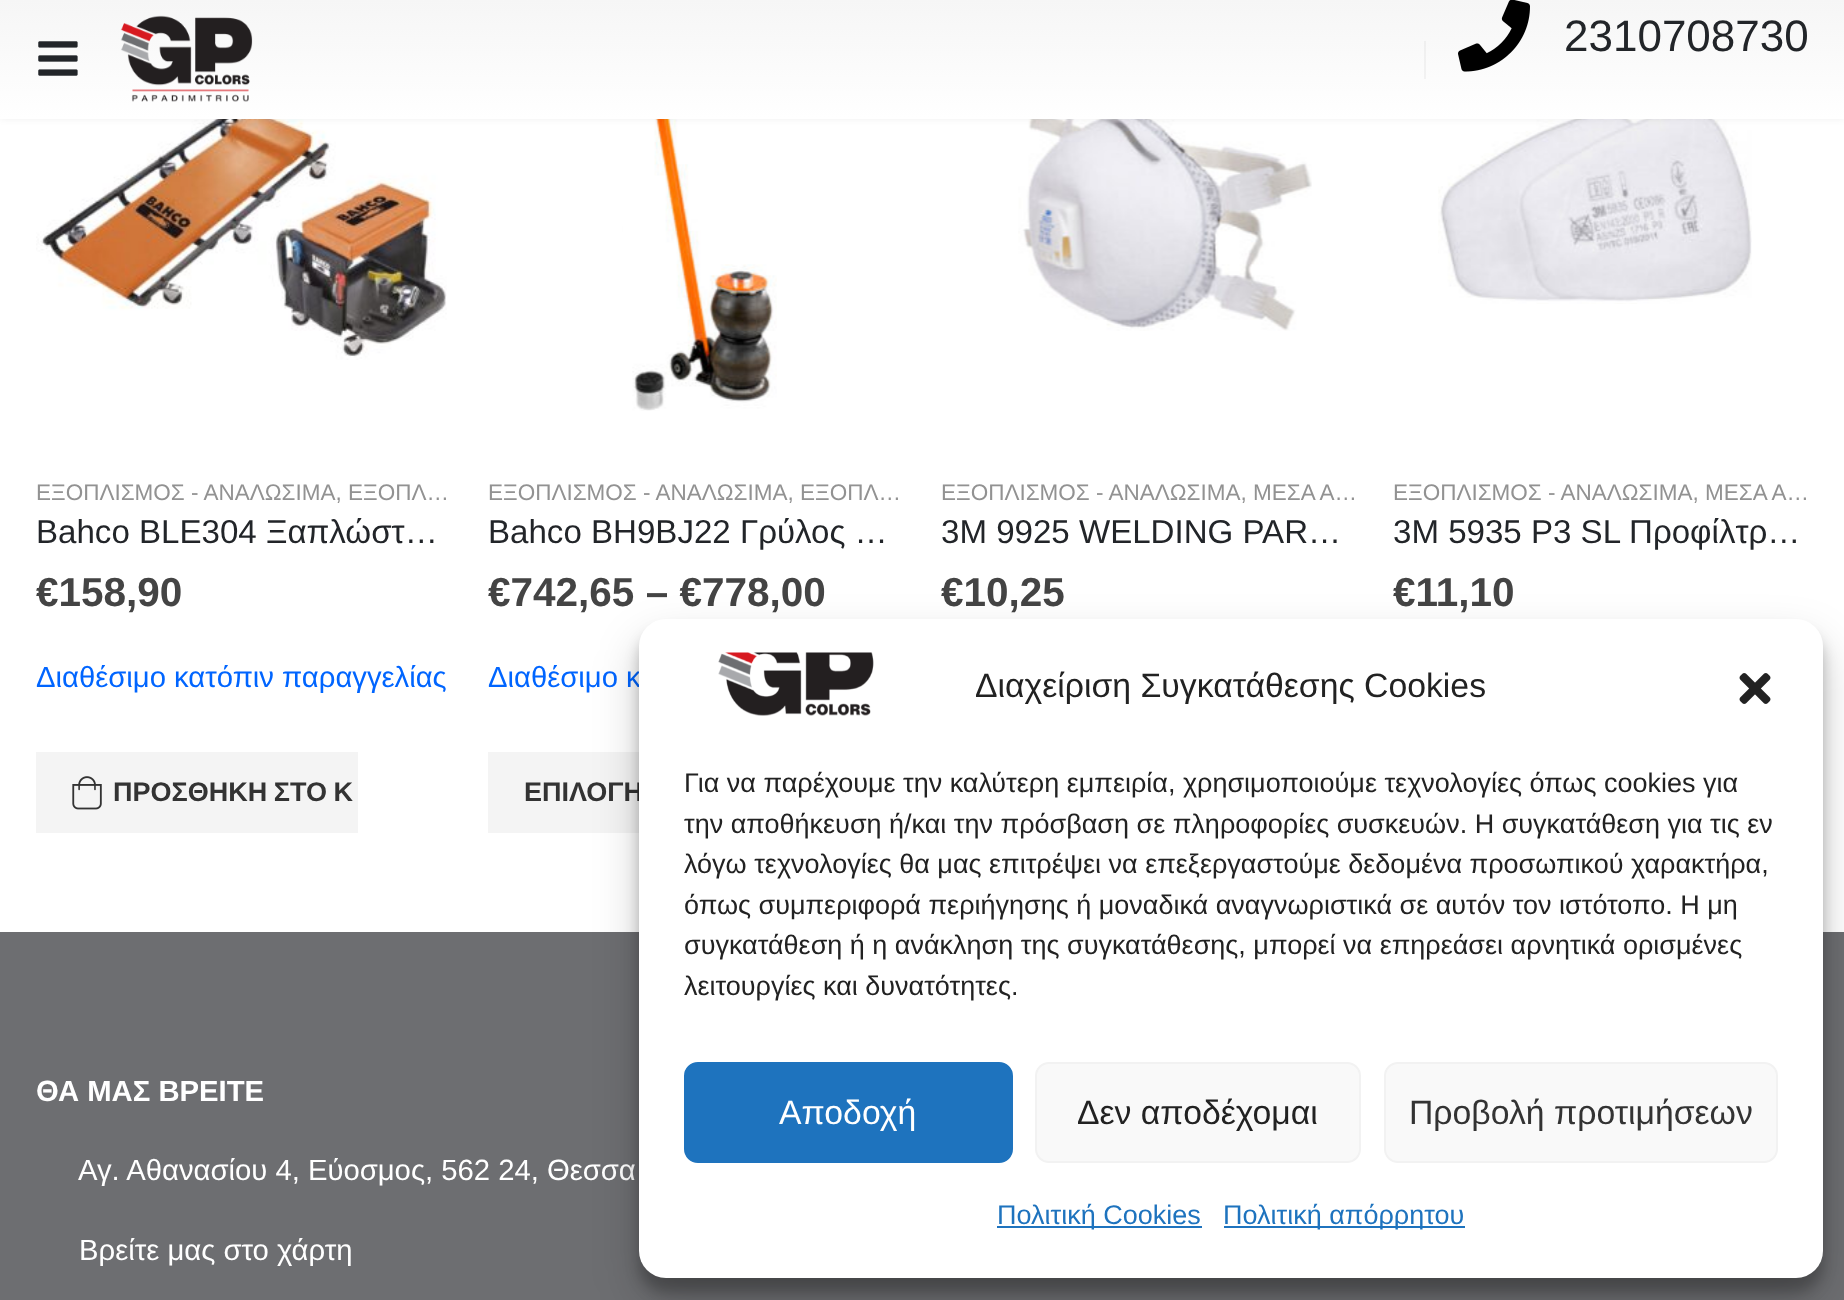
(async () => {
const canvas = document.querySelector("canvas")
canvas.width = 1844
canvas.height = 1300
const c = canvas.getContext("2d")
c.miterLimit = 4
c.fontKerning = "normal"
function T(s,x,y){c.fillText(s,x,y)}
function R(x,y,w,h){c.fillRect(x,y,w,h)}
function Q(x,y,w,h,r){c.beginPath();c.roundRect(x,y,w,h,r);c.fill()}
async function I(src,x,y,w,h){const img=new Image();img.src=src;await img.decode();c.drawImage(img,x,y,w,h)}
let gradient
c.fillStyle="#fff"
R(0,0,1844,1300)
await I("4.png",36,119,411,241)
await I("6.png",622,119,155,292)
await I("7.png",1018,119,294,212)
await I("8.png",1438,119,314,185)
c.fillStyle="#0000000f"
c.filter="blur(3.5px)"
c.beginPath()
c.rect(0,0,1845,119)
c.fill()
c.filter="none"
gradient = c.createLinearGradient(923,0,923,119)
gradient.addColorStop(0,"#f6f6f6")
gradient.addColorStop(1,"#fff")
c.fillStyle = gradient
R(0,0,1844,119)
gradient = c.createLinearGradient(923,0,923,119)
gradient.addColorStop(0,"#ececec")
gradient.addColorStop(1,"#f5f5f5")
c.fillStyle = gradient
R(1424,41,2,38)
await I("1.png",38,41,40,35)
await I("2.png",120,15,133,87)
await I("3.png",1458,0,72,72)
c.font="44px Liberation Sans"
c.fillStyle="#222529"
T("2310708730",1564,51)
c.font="22.5px Liberation Sans"
c.fillStyle="#929292"
T("ΕΞΟΠΛΙΣΜΟΣ - ΑΝΑΛΩΣΙΜΑ,",36,500)
c.wordSpacing="-1px"
T("ΕΞΟΠΛ…",348,500)
c.wordSpacing="0px"
c.font="33.1px Liberation Sans"
c.fillStyle="#222529"
T("Bahco BLE304 Ξαπλώστ…",36,543)
c.font="bold 40.5px Liberation Sans"
c.fillStyle="#444"
T("€158,90",36,606)
c.font="29.25px Liberation Sans"
c.fillStyle="#0065ff"
T("Διαθέσιμο κατόπιν παραγγελίας",36,687)
c.fillStyle="#f4f4f4"
R(36,752,322,81)
await I("5.png",72,776,30,34)
c.wordSpacing="-1px"
c.font="bold 27px Liberation Sans"
c.fillStyle="#333"
T("ΠΡΟΣΘΗΚΗ ΣΤΟ Κ",113,801)
c.wordSpacing="0px"
c.font="22.5px Liberation Sans"
c.fillStyle="#929292"
T("ΕΞΟΠΛΙΣΜΟΣ - ΑΝΑΛΩΣΙΜΑ,",488,500)
c.wordSpacing="-1px"
T("ΕΞΟΠΛ…",800,500)
c.wordSpacing="0px"
c.font="33.1px Liberation Sans"
c.fillStyle="#222529"
T("Bahco BH9BJ22 Γρύλος …",488,543)
c.font="bold 40.5px Liberation Sans"
c.fillStyle="#444"
T("€742,65 – €778,00",488,606)
c.font="29.25px Liberation Sans"
c.fillStyle="#0065ff"
T("Διαθέσιμο κ",488,687)
c.fillStyle="#f4f4f4"
R(488,752,151,81)
c.font="bold 27px Liberation Sans"
c.fillStyle="#333"
T("ΕΠΙΛΟΓΗ",524,801)
c.font="22.5px Liberation Sans"
c.fillStyle="#929292"
T("ΕΞΟΠΛΙΣΜΟΣ - ΑΝΑΛΩΣΙΜΑ, ΜΕΣΑ Α…",941,500)
c.font="33.1px Liberation Sans"
c.fillStyle="#222529"
T("3M 9925 WELDING PAR…",941,543)
c.font="bold 40.5px Liberation Sans"
c.fillStyle="#444"
T("€10,25",941,606)
c.font="22.5px Liberation Sans"
c.fillStyle="#929292"
T("ΕΞΟΠΛΙΣΜΟΣ - ΑΝΑΛΩΣΙΜΑ, ΜΕΣΑ Α…",1393,500)
c.font="33.1px Liberation Sans"
c.fillStyle="#222529"
T("3M 5935 P3 SL Προφίλτρ…",1393,543)
c.font="bold 40.5px Liberation Sans"
c.fillStyle="#444"
T("€11,10",1393,606)
c.fillStyle="#6d6e71"
R(0,932,1844,368)
c.font="bold 29.25px Liberation Sans"
c.fillStyle="#fff"
T("ΘΑ ΜΑΣ ΒΡΕΙΤΕ",36,1101)
c.font="29.25px Liberation Sans"
T("Αγ. Αθανασίου 4, Εύοσμος, 562 24, Θεσσα",78,1180)
T("Βρείτε μας στο χάρτη",79,1260)
c.fillStyle="#0000003b"
c.filter="blur(7px)"
c.beginPath()
c.roundRect(639,632,1184,660,27)
c.fill()
c.filter="none"
c.fillStyle="#00000030"
c.filter="blur(22.5px)"
c.beginPath()
c.roundRect(639,641,1184,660,27)
c.fill()
c.filter="none"
c.fillStyle="#fff"
Q(639,619,1184,659,27)
await I("9.png",718,652,156,64)
c.font="33.75px Liberation Sans"
c.fillStyle="#222"
T("Διαχείριση Συγκατάθεσης Cookies",975,697)
await I("10.png",1739,673,32,31)
c.font="27px Liberation Sans"
T("Για να παρέχουμε την καλύτερη εμπειρία, χρησιμοποιούμε τεχνολογίες όπως cookies για",684,792)
T("την αποθήκευση ή/και την πρόσβαση σε πληροφορίες συσκευών. Η συγκατάθεση για τις εν",684,833)
T("λόγω τεχνολογίες θα μας επιτρέψει να επεξεργαστούμε δεδομένα προσωπικού χαρακτήρα,",684,873)
T("όπως συμπεριφορά περιήγησης ή μοναδικά αναγνωριστικά σε αυτόν τον ιστότοπο. Η μη",684,914)
T("συγκατάθεση ή η ανάκληση της συγκατάθεσης, μπορεί να επηρεάσει αρνητικά ορισμένες",684,954)
T("λειτουργίες και δυνατότητες.",684,995)
c.fillStyle="#1e73be"
c.beginPath()
c.roundRect(685,1063,327,99,13)
c.fill()
c.strokeStyle="#1e73be"
c.lineWidth=2
c.stroke()
c.font="33.75px Liberation Sans"
c.fillStyle="#fff"
T("Αποδοχή",779,1124)
c.fillStyle="#f9f9f9"
c.beginPath()
c.roundRect(1036,1063,324,99,13)
c.fill()
c.strokeStyle="#f2f2f2"
c.stroke()
c.fillStyle="#222"
T("Δεν αποδέχομαι",1077,1124)
c.fillStyle="#f9f9f9"
c.beginPath()
c.roundRect(1385,1063,392,99,13)
c.fill()
c.stroke()
c.fillStyle="#333"
T("Προβολή προτιμήσεων",1409,1124)
c.fillStyle="#1e73be"
R(997,1226,205,2)
c.font="27px Liberation Sans"
T("Πολιτική Cookies",997,1224)
R(1224,1226,241,2)
T("Πολιτική απόρρητου",1223,1224)
})()
